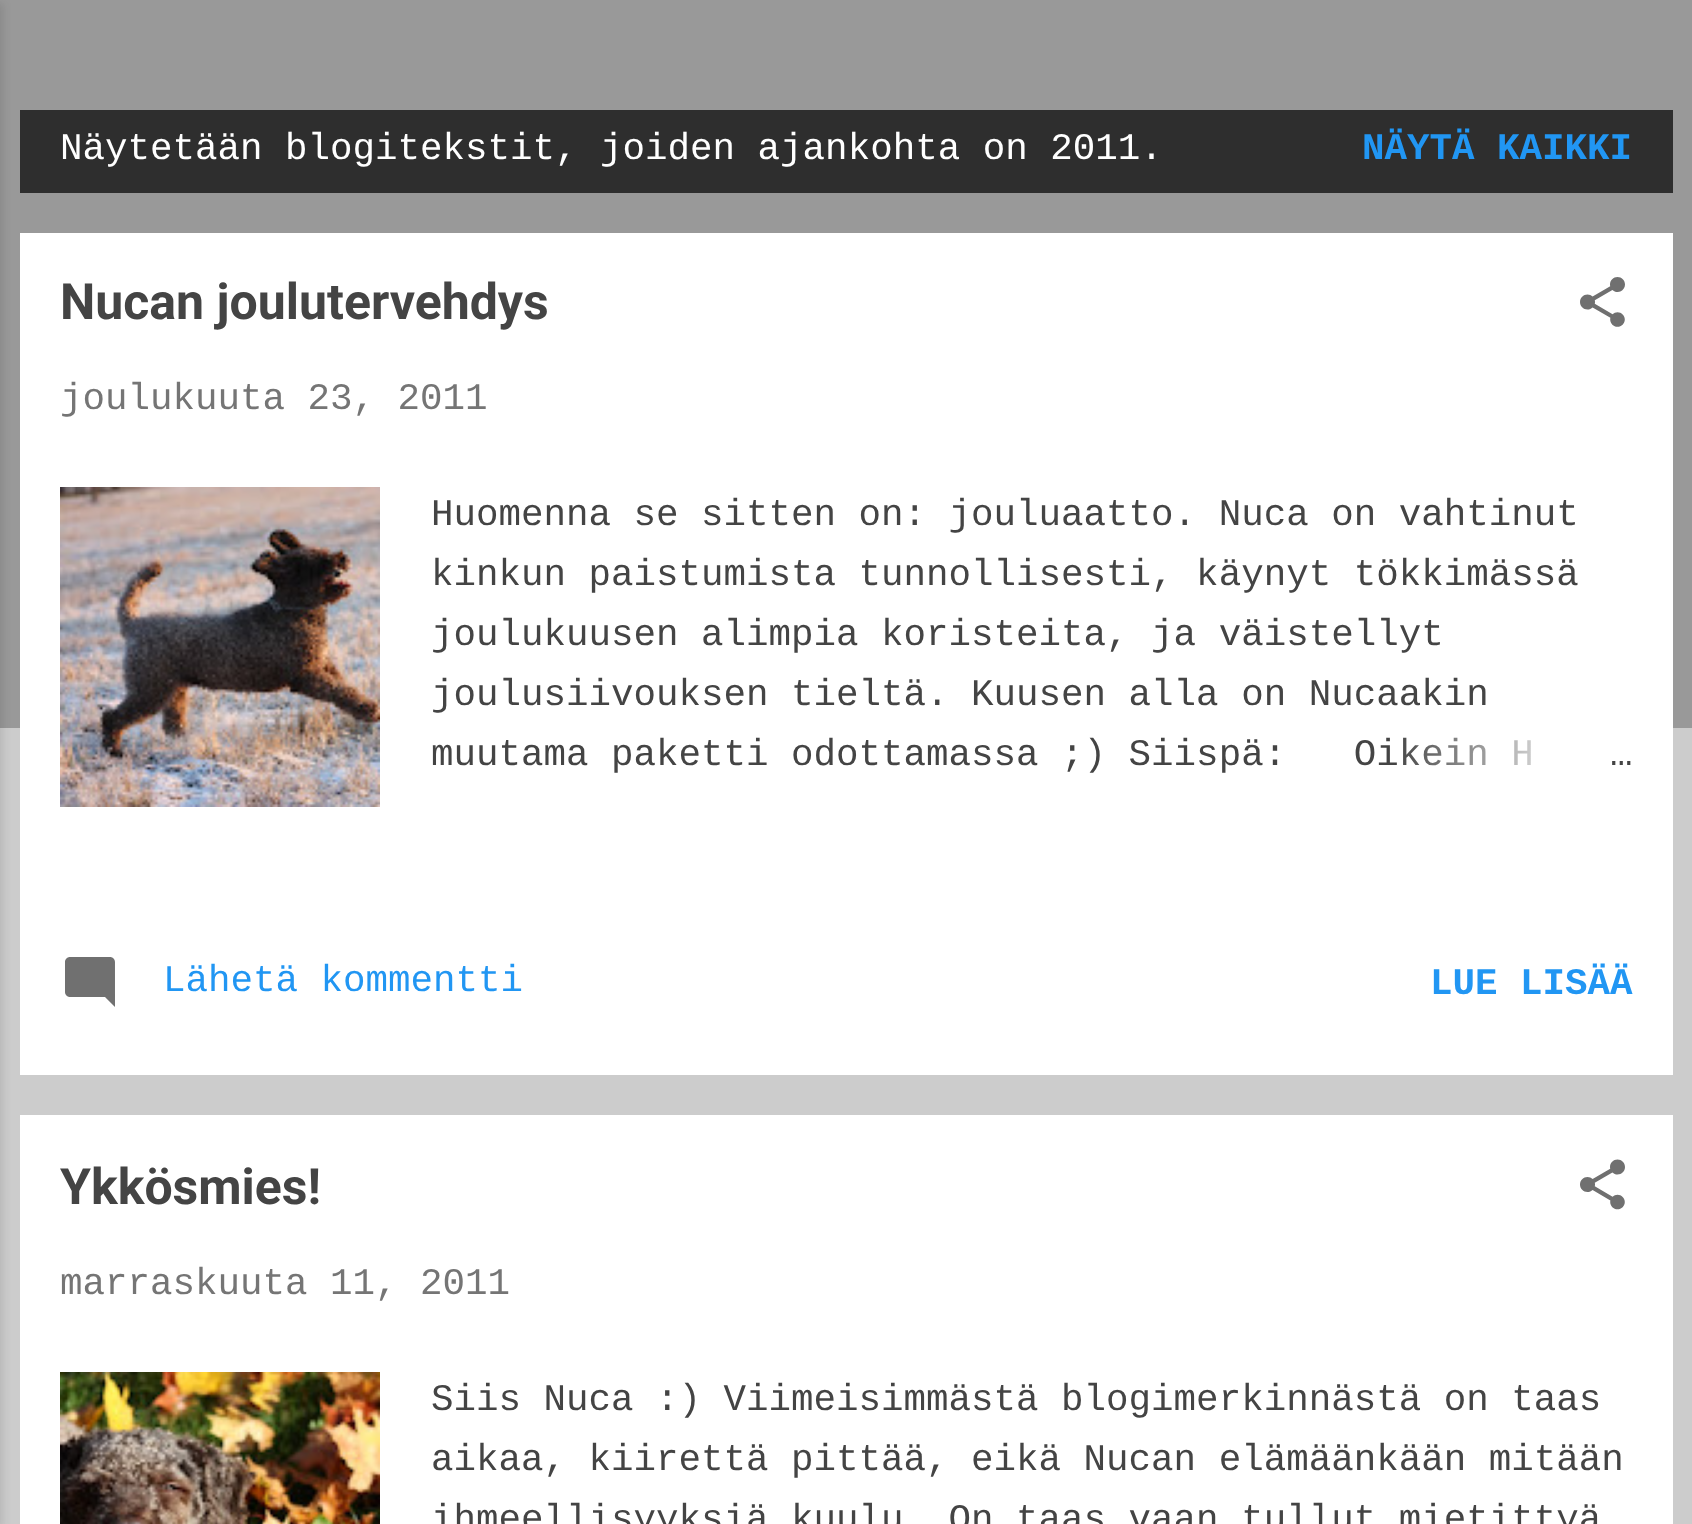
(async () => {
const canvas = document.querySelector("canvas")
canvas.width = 1692
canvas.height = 1524
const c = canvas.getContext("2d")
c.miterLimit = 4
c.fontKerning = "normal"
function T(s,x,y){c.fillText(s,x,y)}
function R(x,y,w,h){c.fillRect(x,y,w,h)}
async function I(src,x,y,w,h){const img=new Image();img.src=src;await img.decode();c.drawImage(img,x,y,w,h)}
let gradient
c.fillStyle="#ccc"
R(0,0,1692,1524)
c.fillStyle="#999"
R(0,0,1692,728)
c.fillStyle="#0000001a"
c.filter="blur(4px)"
c.beginPath()
c.rect(-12,3,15,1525)
c.fill()
c.filter="none"
c.fillStyle="#2e2e2e"
R(20,110,1653,83)
c.font="37.5px Liberation Mono"
c.fillStyle="#fff"
T("Näytetään blogitekstit, joiden ajankohta on 2011.",60,159)
c.font="bold 37.5px Liberation Mono"
c.fillStyle="#2196f3"
T("NÄYTÄ KAIKKI",1362,159)
c.fillStyle="#fff"
R(20,233,1653,842)
c.font="bold 50px Roboto"
c.fillStyle="#444"
T("Nucan joulutervehdys",60,319)
await I("1.png",1580,277,45,50)
c.font="37.5px Liberation Mono"
c.fillStyle="#757575"
T("joulukuuta 23, 2011",60,409)
await I("2.png",60,487,320,320)
c.fillStyle="#444"
T("Huomenna se sitten on: jouluaatto. Nuca on vahtinut",431,525)
T("kinkun paistumista tunnollisesti, käynyt tökkimässä",431,585)
T("joulukuusen alimpia koristeita, ja väistellyt",431,645)
T("joulusiivouksen tieltä. Kuusen alla on Nucaakin",431,705)
T("muutama paketti odottamassa ;) Siispä:   Oikein H",431,765)
gradient = c.createLinearGradient(1633,758,1393,758)
gradient.addColorStop(0,"#fff")
gradient.addColorStop(.2,"#fff")
gradient.addColorStop(1,"#ffffff00")
c.fillStyle = gradient
R(1402,737,129,29)
c.fillStyle="#444"
T("…",1610,765)
await I("3.png",65,957,50,50)
c.fillStyle="#2196f3"
T("Lähetä kommentti",163,991)
c.font="bold 37.5px Liberation Mono"
T("LUE LISÄÄ",1430,994)
c.fillStyle="#fff"
R(20,1115,1653,409)
c.font="bold 50px Roboto"
c.fillStyle="#444"
T("Ykkösmies!",60,1204)
await I("4.png",1580,1159,45,51)
c.font="37.5px Liberation Mono"
c.fillStyle="#757575"
T("marraskuuta 11, 2011",60,1294)
await I("5.png",60,1372,320,152)
c.fillStyle="#444"
T("Siis Nuca :) Viimeisimmästä blogimerkinnästä on taas",431,1410)
T("aikaa, kiirettä pittää, eikä Nucan elämäänkään mitään",431,1470)
T("ihmeellisyyksiä kuulu. On taas vaan tullut mietittyä",431,1530)
})()
